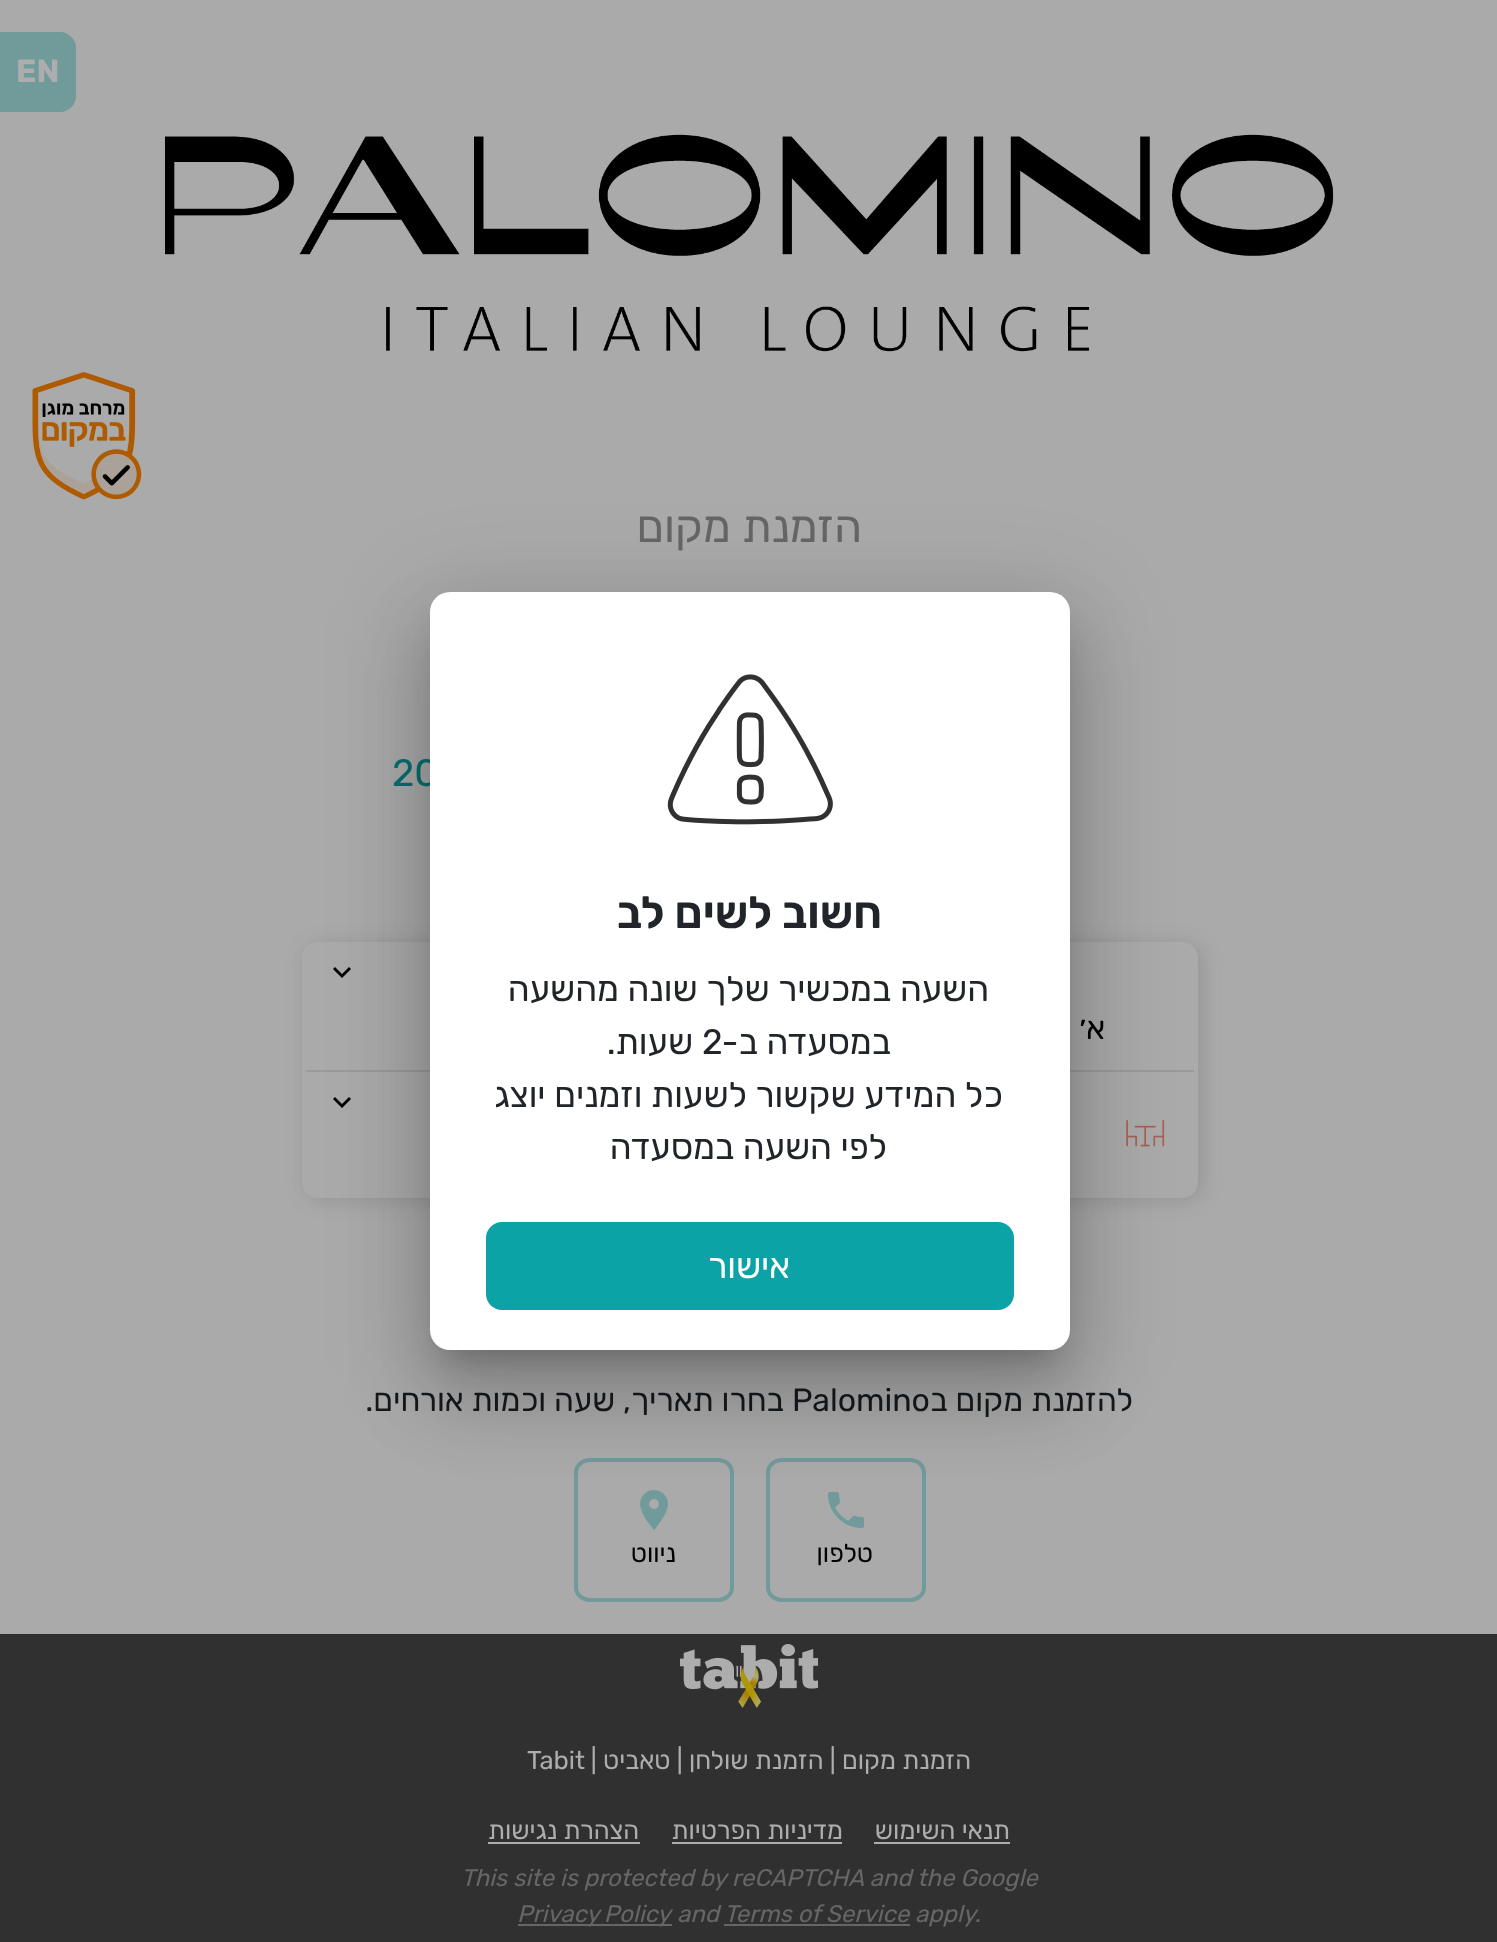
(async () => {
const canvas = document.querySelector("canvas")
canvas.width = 1497
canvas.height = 1942
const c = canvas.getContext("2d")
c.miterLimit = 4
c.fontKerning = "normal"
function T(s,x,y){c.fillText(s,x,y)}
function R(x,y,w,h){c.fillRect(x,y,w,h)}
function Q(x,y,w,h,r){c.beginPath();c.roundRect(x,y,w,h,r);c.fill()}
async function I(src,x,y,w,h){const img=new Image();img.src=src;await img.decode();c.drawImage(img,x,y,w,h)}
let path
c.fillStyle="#aaa"
R(0,0,1497,1942)
c.fillStyle="#719a9b"
c.beginPath()
c.roundRect(0,32,76,80,[0,16,16,0])
c.fill()
c.font="bold 32px Rubik"
c.fillStyle="#adadad"
T("EN",16,82)
path = new Path2D("M782 1460h128c7.5 0 14 5.5 14 12.5v115c0 7-6.5 12.5-14 12.5h-128c-7.5 0-14-5.5-14-12.5v-115c0-7 6.5-12.5 14-12.5z")
c.strokeStyle="#719a9b"
c.lineWidth=4
c.stroke(path)
await I("1.png",828,1492,36,36)
c.direction="rtl"
c.font="25.6px Rubik"
c.fillStyle="#000"
T("טלפון",873,1562)
path = new Path2D("M590 1460h128c7.5 0 14 5.5 14 12.5v115c0 7-6.5 12.5-14 12.5h-128c-7.5 0-14-5.5-14-12.5v-115c0-7 6.5-12.5 14-12.5z")
c.stroke(path)
await I("2.png",640,1490,28,40)
T("ניווט",676,1562)
await I("3.png",165,134,1169,218)
await I("4.png",32,372,110,128)
c.font="44.75px Rubik"
c.fillStyle="#666"
T("הזמנת מקום",862,542)
c.direction="ltr"
c.font="38px Rubik"
c.fillStyle="#086f71"
T("20",392,786)
c.save()
path = new Path2D("M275 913h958v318h-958zm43 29h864c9 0 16 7 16 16v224c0 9-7 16-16 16h-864c-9 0-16-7-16-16v-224c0-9 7-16 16-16z")
c.clip(path,"evenodd")
c.fillStyle="#3d3d3d33"
c.filter="blur(10px)"
c.beginPath()
c.roundRect(306,944,896,256,16)
c.fill()
c.filter="none"
c.restore()
c.fillStyle="#000"
path = new Path2D("M335 967l7 7l7-7l2 2l-9 9l-9-9z")
c.fill(path)
c.direction="rtl"
c.font="32px Rubik"
T("א׳",1105,1039)
c.fillStyle="#9b9a99"
R(306,1070,888,2)
c.fillStyle="#000"
path = new Path2D("M335 1097l7 7l7-7l2 2l-9 9l-9-9z")
c.fill(path)
await I("5.png",1126,1120,39,27)
c.fillStyle="#16191c"
T("להזמנת מקום ב",1133,1411)
c.direction="ltr"
T("Palomino",792,1411)
c.direction="rtl"
T("בחרו תאריך, שעה וכמות אורחים.",784,1411)
c.fillStyle="#303030"
R(0,1634,1497,308)
await I("6.png",680,1644,138,64)
c.font="25.6px Rubik"
c.fillStyle="#adadad"
T("הזמנת מקום | הזמנת שולחן | טאביט |",971,1769)
c.direction="ltr"
T("Tabit",527,1769)
c.direction="rtl"
T("תנאי השימוש",1010,1839)
R(874,1842,136,2)
T("מדיניות הפרטיות",843,1839)
R(672,1842,170,2)
T("הצהרת נגישות",639,1839)
R(488,1842,152,2)
c.direction="ltr"
c.font="italic 24px Rubik"
c.fillStyle="#666"
T("This site is protected by reCAPTCHA and the Google",461,1886)
R(724,1924,186,2)
T("Terms of Service apply.",724,1922)
T("and",677,1922)
R(518,1924,154,2)
c.wordSpacing="-1px"
T("Privacy Policy",517,1922)
c.fillStyle="#0000001f"
c.filter="blur(46px)"
c.beginPath()
c.roundRect(414,594,672,790,36)
c.fill()
c.filter="none"
c.fillStyle="#00000024"
c.filter="blur(38px)"
c.beginPath()
c.roundRect(424,634,652,770,26)
c.fill()
c.filter="none"
c.fillStyle="#00000033"
c.filter="blur(15px)"
c.beginPath()
c.roundRect(444,628,612,730,6)
c.fill()
c.filter="none"
c.fillStyle="#fff"
Q(430,592,640,758,20)
await I("7.png",667,674,166,151)
c.wordSpacing="0px"
c.direction="rtl"
c.font="600 44.75px Rubik"
c.fillStyle="#212529"
T("חשוב לשים לב",882,928)
c.font="35.25px Rubik"
T("השעה במכשיר שלך שונה מהשעה",989,1001)
T("במסעדה ב-",891,1054)
c.direction="ltr"
T("2",702,1054)
c.direction="rtl"
T("שעות.",693,1054)
T("כל המידע שקשור לשעות וזמנים יוצג",1003,1107)
T("לפי השעה במסעדה",887,1159)
c.fillStyle="#0ca3a6"
Q(486,1222,528,88,16)
c.fillStyle="#fff"
T("אישור",790,1278)
})()
